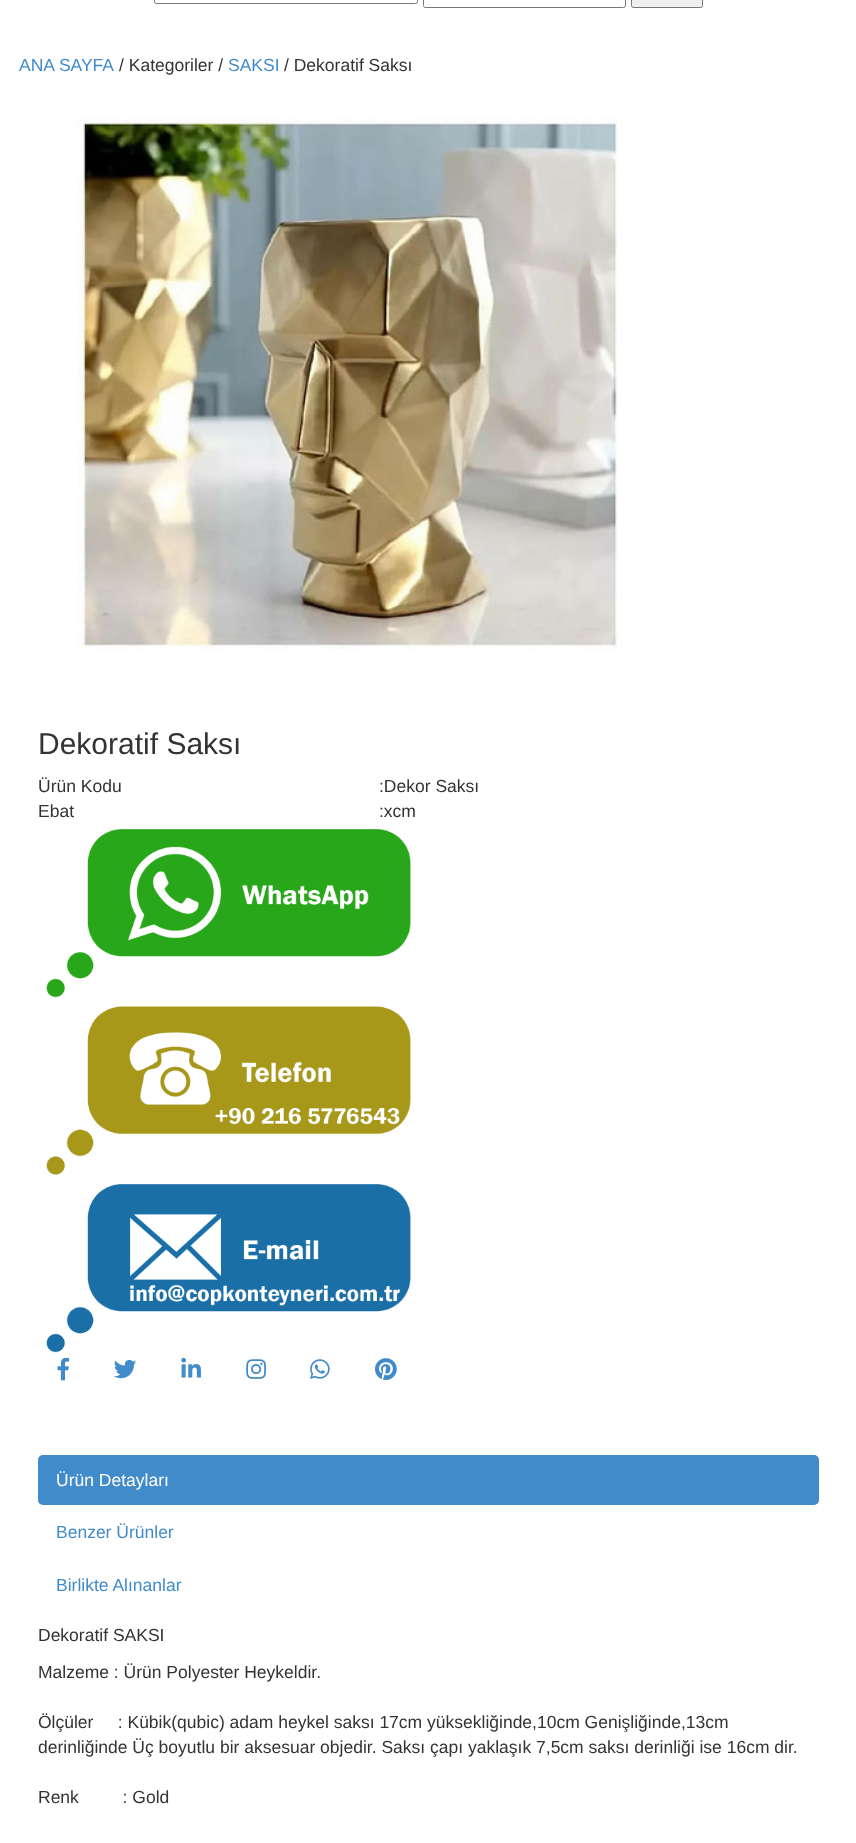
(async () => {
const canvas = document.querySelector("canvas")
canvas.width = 856
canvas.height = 1843
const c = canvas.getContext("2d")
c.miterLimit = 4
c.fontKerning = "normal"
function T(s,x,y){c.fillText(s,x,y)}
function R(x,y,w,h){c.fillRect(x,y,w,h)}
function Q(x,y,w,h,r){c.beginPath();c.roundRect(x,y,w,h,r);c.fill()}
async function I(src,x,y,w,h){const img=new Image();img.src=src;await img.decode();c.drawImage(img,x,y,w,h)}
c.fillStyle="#fff"
R(0,0,856,1843)
c.beginPath()
c.roundRect(154.5,-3.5,263,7,2)
c.strokeStyle="#767676"
c.stroke()
c.beginPath()
c.roundRect(423.5,-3.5,202,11,2)
c.stroke()
c.fillStyle="#efefef"
c.beginPath()
c.roundRect(631.5,-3.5,71,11,2)
c.fill()
c.stroke()
c.font="17.5px Liberation Sans"
c.fillStyle="#428bca"
T("ANA SAYFA",19,71)
c.fillStyle="#333"
T("/ Kategoriler /",119,71)
c.fillStyle="#428bca"
T("SAKSI",228,71)
c.fillStyle="#333"
T("/ Dekoratif Saksı",284,71)
await I("1.png",77,117,541,534)
c.font="30px Liberation Sans"
T("Dekoratif Saksı",38,754)
c.font="17.5px Liberation Sans"
T("Ürün Kodu",38,792)
T(":Dekor Saksı",379,792)
T("Ebat",38,817)
T(":xcm",379,817)
await I("2.png",46,829,365,169)
await I("3.png",46,1006,365,169)
await I("4.png",46,1184,365,169)
await I("5.png",57,1357,13,24)
await I("6.png",114,1359,23,20)
await I("7.png",181,1357,20,21)
await I("8.png",246,1359,20,20)
await I("9.png",310,1359,20,20)
await I("10.png",375,1358,22,22)
c.fillStyle="#428bca"
Q(38,1455,781,50,5)
c.fillStyle="#fff"
T("Ürün Detayları",56,1486)
c.fillStyle="#428bca"
T("Benzer Ürünler",56,1538)
T("Birlikte Alınanlar",56,1591)
c.fillStyle="#333"
T("Dekoratif SAKSI",38,1641)
T("Malzeme : Ürün Polyester Heykeldir.",38,1678)
T("Ölçüler     : Kübik(qubic) adam heykel saksı 17cm yüksekliğinde,10cm Genişliğinde,13cm",38,1728)
T("derinliğinde Üç boyutlu bir aksesuar objedir. Saksı çapı yaklaşık 7,5cm saksı derinliği ise 16cm dir.",38,1753)
T("Renk         : Gold",38,1803)
})()
